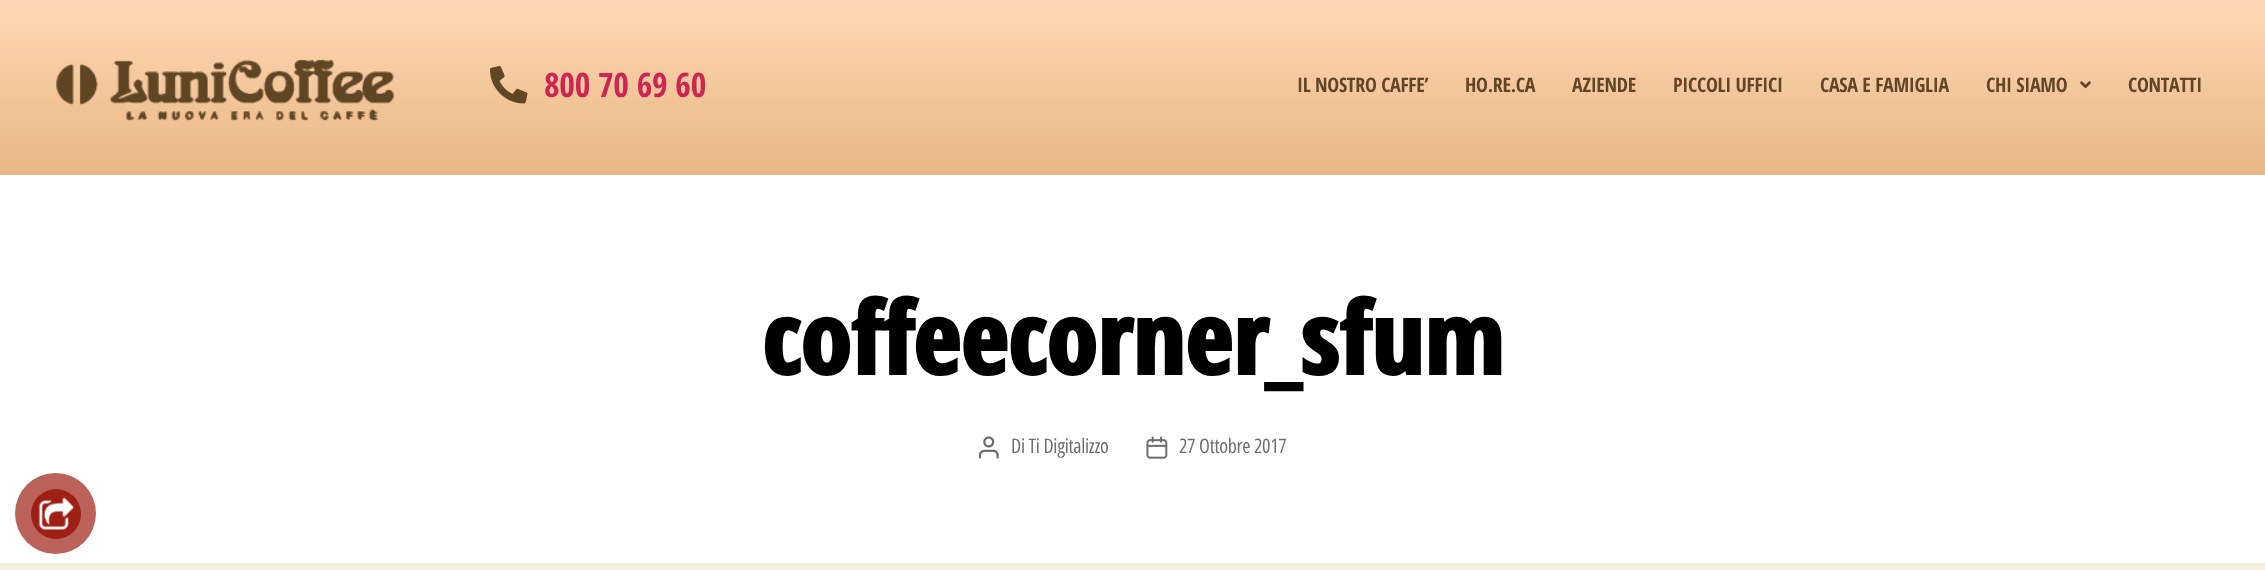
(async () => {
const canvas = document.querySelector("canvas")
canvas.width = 2265
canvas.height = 570
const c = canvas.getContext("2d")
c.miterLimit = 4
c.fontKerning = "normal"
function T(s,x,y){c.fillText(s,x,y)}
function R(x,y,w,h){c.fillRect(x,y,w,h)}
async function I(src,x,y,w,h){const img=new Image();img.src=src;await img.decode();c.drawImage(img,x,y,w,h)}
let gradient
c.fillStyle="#f5efe0"
R(0,0,2265,570)
gradient = c.createLinearGradient(1133,0,1133,175)
gradient.addColorStop(0,"#ffd9b4")
gradient.addColorStop(1,"#e8b685")
c.fillStyle = gradient
R(0,0,2265,175)
await I("1.png",56,59,338,62)
await I("2.png",490,65,38,39)
c.letterSpacing="-0.3px"
c.font="bold 33.75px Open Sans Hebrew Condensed"
c.fillStyle="#cd2653"
T("800 70 69 60",544,97)
c.font="bold 20px Open Sans Hebrew Condensed"
c.fillStyle="#614625"
T("IL NOSTRO CAFFE’",1297,92)
T("HO.RE.CA",1465,92)
T("AZIENDE",1572,92)
T("PICCOLI UFFICI",1673,92)
T("CASA E FAMIGLIA",1820,92)
T("CHI SIAMO",1986,92)
await I("3.png",2080,81,11,8)
T("CONTATTI",2128,92)
c.fillStyle="#fff"
R(0,175,2265,388)
c.letterSpacing="-4.4px"
c.font="800 105px Open Sans Hebrew Condensed"
c.fillStyle="#000"
T("coffeecorner_sfum",761,375)
await I("4.png",979,436,20,23)
c.letterSpacing="-0.3px"
c.font="20px Open Sans Hebrew Condensed"
c.fillStyle="#6d6d6d"
T("Di Ti Digitalizzo",1011,453)
await I("5.png",1146,436,22,23)
T("27 Ottobre 2017",1179,453)
c.fillStyle="#bb635b"
c.beginPath()
c.arc(55.5,513.5,40.5,0,7)
c.fill()
c.fillStyle="#9e2015"
c.beginPath()
c.arc(56,514,25,0,7)
c.fill()
await I("6.png",38,497,36,33)
})()
